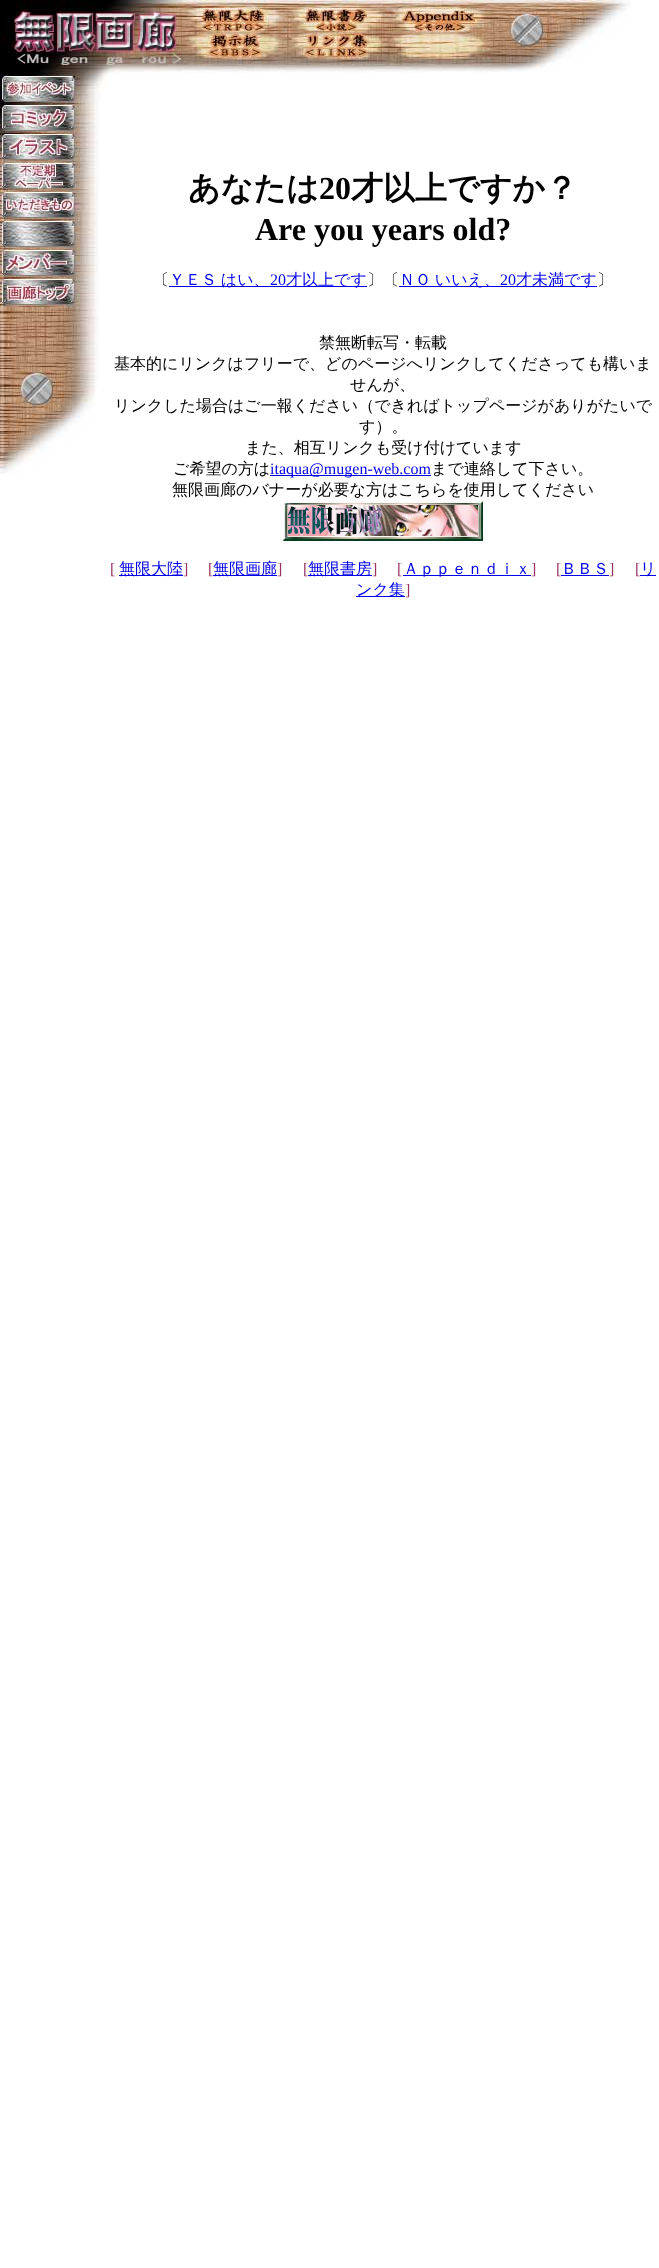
(async () => {
const canvas = document.querySelector("canvas")
canvas.width = 659
canvas.height = 2268
const c = canvas.getContext("2d")
c.miterLimit = 4
c.fontKerning = "normal"
function T(s,x,y){c.fillText(s,x,y)}
function R(x,y,w,h){c.fillRect(x,y,w,h)}
async function I(src,x,y,w,h){const img=new Image();img.src=src;await img.decode();c.drawImage(img,x,y,w,h)}
c.fillStyle="#fff"
R(0,0,659,2268)
await I("1.png",0,0,182,74)
await I("2.png",182,0,105,33)
await I("3.png",287,0,100,33)
await I("4.png",387,0,104,33)
await I("5.png",491,0,140,72)
await I("6.png",182,33,105,40)
await I("7.png",287,33,100,40)
await I("8.png",387,33,104,40)
await I("9.png",0,74,107,29)
await I("10.png",0,103,99,29)
await I("11.png",0,132,99,29)
await I("12.png",0,161,99,29)
await I("13.png",0,190,99,29)
await I("14.png",0,219,98,29)
await I("15.png",0,248,99,29)
await I("16.png",0,277,99,30)
await I("17.png",0,307,99,167)
c.font="bold 32px WenQuanYi Zen Hei"
c.fillStyle="#000"
T("あなたは",188,199)
c.font="bold 32px Liberation Serif"
T("20",319,199)
c.font="bold 32px WenQuanYi Zen Hei"
T("才以上ですか？",351,199)
c.font="bold 32px Liberation Serif"
T("Are you years old?",255,240)
c.font="500 16px WenQuanYi Zen Hei"
T("〔",153,285)
c.fillStyle="#00e"
R(169,286,198,1)
c.wordSpacing="-1px"
T("ＹＥＳ はい、",169,285)
c.wordSpacing="0px"
c.font="16px Liberation Serif"
T("20",270,285)
c.font="500 16px WenQuanYi Zen Hei"
T("才以上です",286,285)
c.fillStyle="#000"
T("〕〔",367,285)
c.fillStyle="#00e"
R(399,286,198,1)
c.wordSpacing="-1px"
T("ＮＯ いいえ、",399,285)
c.wordSpacing="0px"
c.font="16px Liberation Serif"
T("20",500,285)
c.font="500 16px WenQuanYi Zen Hei"
T("才未満です",516,285)
c.fillStyle="#000"
T("〕",597,285)
T("禁無断転写・転載",319,348)
T("基本的にリンクはフリーで、どのページへリンクしてくださっても構いま",114,369)
T("せんが、",350,390)
T("リンクした場合はご一報ください（できればトップページがありがたいで",114,411)
T("す）。",359,432)
T("また、相互リンクも受け付けています",245,453)
T("ご希望の方は",173,474)
c.fillStyle="#00e"
R(270,475,161,1)
c.font="16px Liberation Serif"
T("itaqua@mugen-web.com",270,474)
c.font="500 16px WenQuanYi Zen Hei"
c.fillStyle="#000"
T("まで連絡して下さい。",431,474)
T("無限画廊のバナーが必要な方はこちらを使用してください",172,495)
await I("18.png",283,501,200,40)
c.font="16px Liberation Serif"
c.fillStyle="#936"
T("[",110,574)
c.fillStyle="#00e"
R(119,575,64,1)
c.font="500 16px WenQuanYi Zen Hei"
T("無限大陸",119,574)
c.font="16px Liberation Serif"
c.fillStyle="#936"
T("]",183,574)
T("[",208,574)
c.fillStyle="#00e"
R(213,575,64,1)
c.font="500 16px WenQuanYi Zen Hei"
T("無限画廊",213,574)
c.font="16px Liberation Serif"
c.fillStyle="#936"
T("]",277,574)
T("[",303,574)
c.fillStyle="#00e"
R(308,575,64,1)
c.font="500 16px WenQuanYi Zen Hei"
T("無限書房",308,574)
c.font="16px Liberation Serif"
c.fillStyle="#936"
T("]",372,574)
T("[",397,574)
c.fillStyle="#00e"
R(403,575,128,1)
c.font="500 16px WenQuanYi Zen Hei"
T("Ａｐｐｅｎｄｉｘ",403,574)
c.font="16px Liberation Serif"
c.fillStyle="#936"
T("]",531,574)
T("[",556,574)
c.fillStyle="#00e"
R(561,575,48,1)
c.font="500 16px WenQuanYi Zen Hei"
T("ＢＢＳ",561,574)
c.font="16px Liberation Serif"
c.fillStyle="#936"
T("]",609,574)
T("[",635,574)
c.fillStyle="#00e"
R(640,575,16,1)
c.font="500 16px WenQuanYi Zen Hei"
T("リ",640,574)
R(356,596,49,1)
T("ンク集",356,595)
c.font="16px Liberation Serif"
c.fillStyle="#936"
T("]",405,595)
})()
